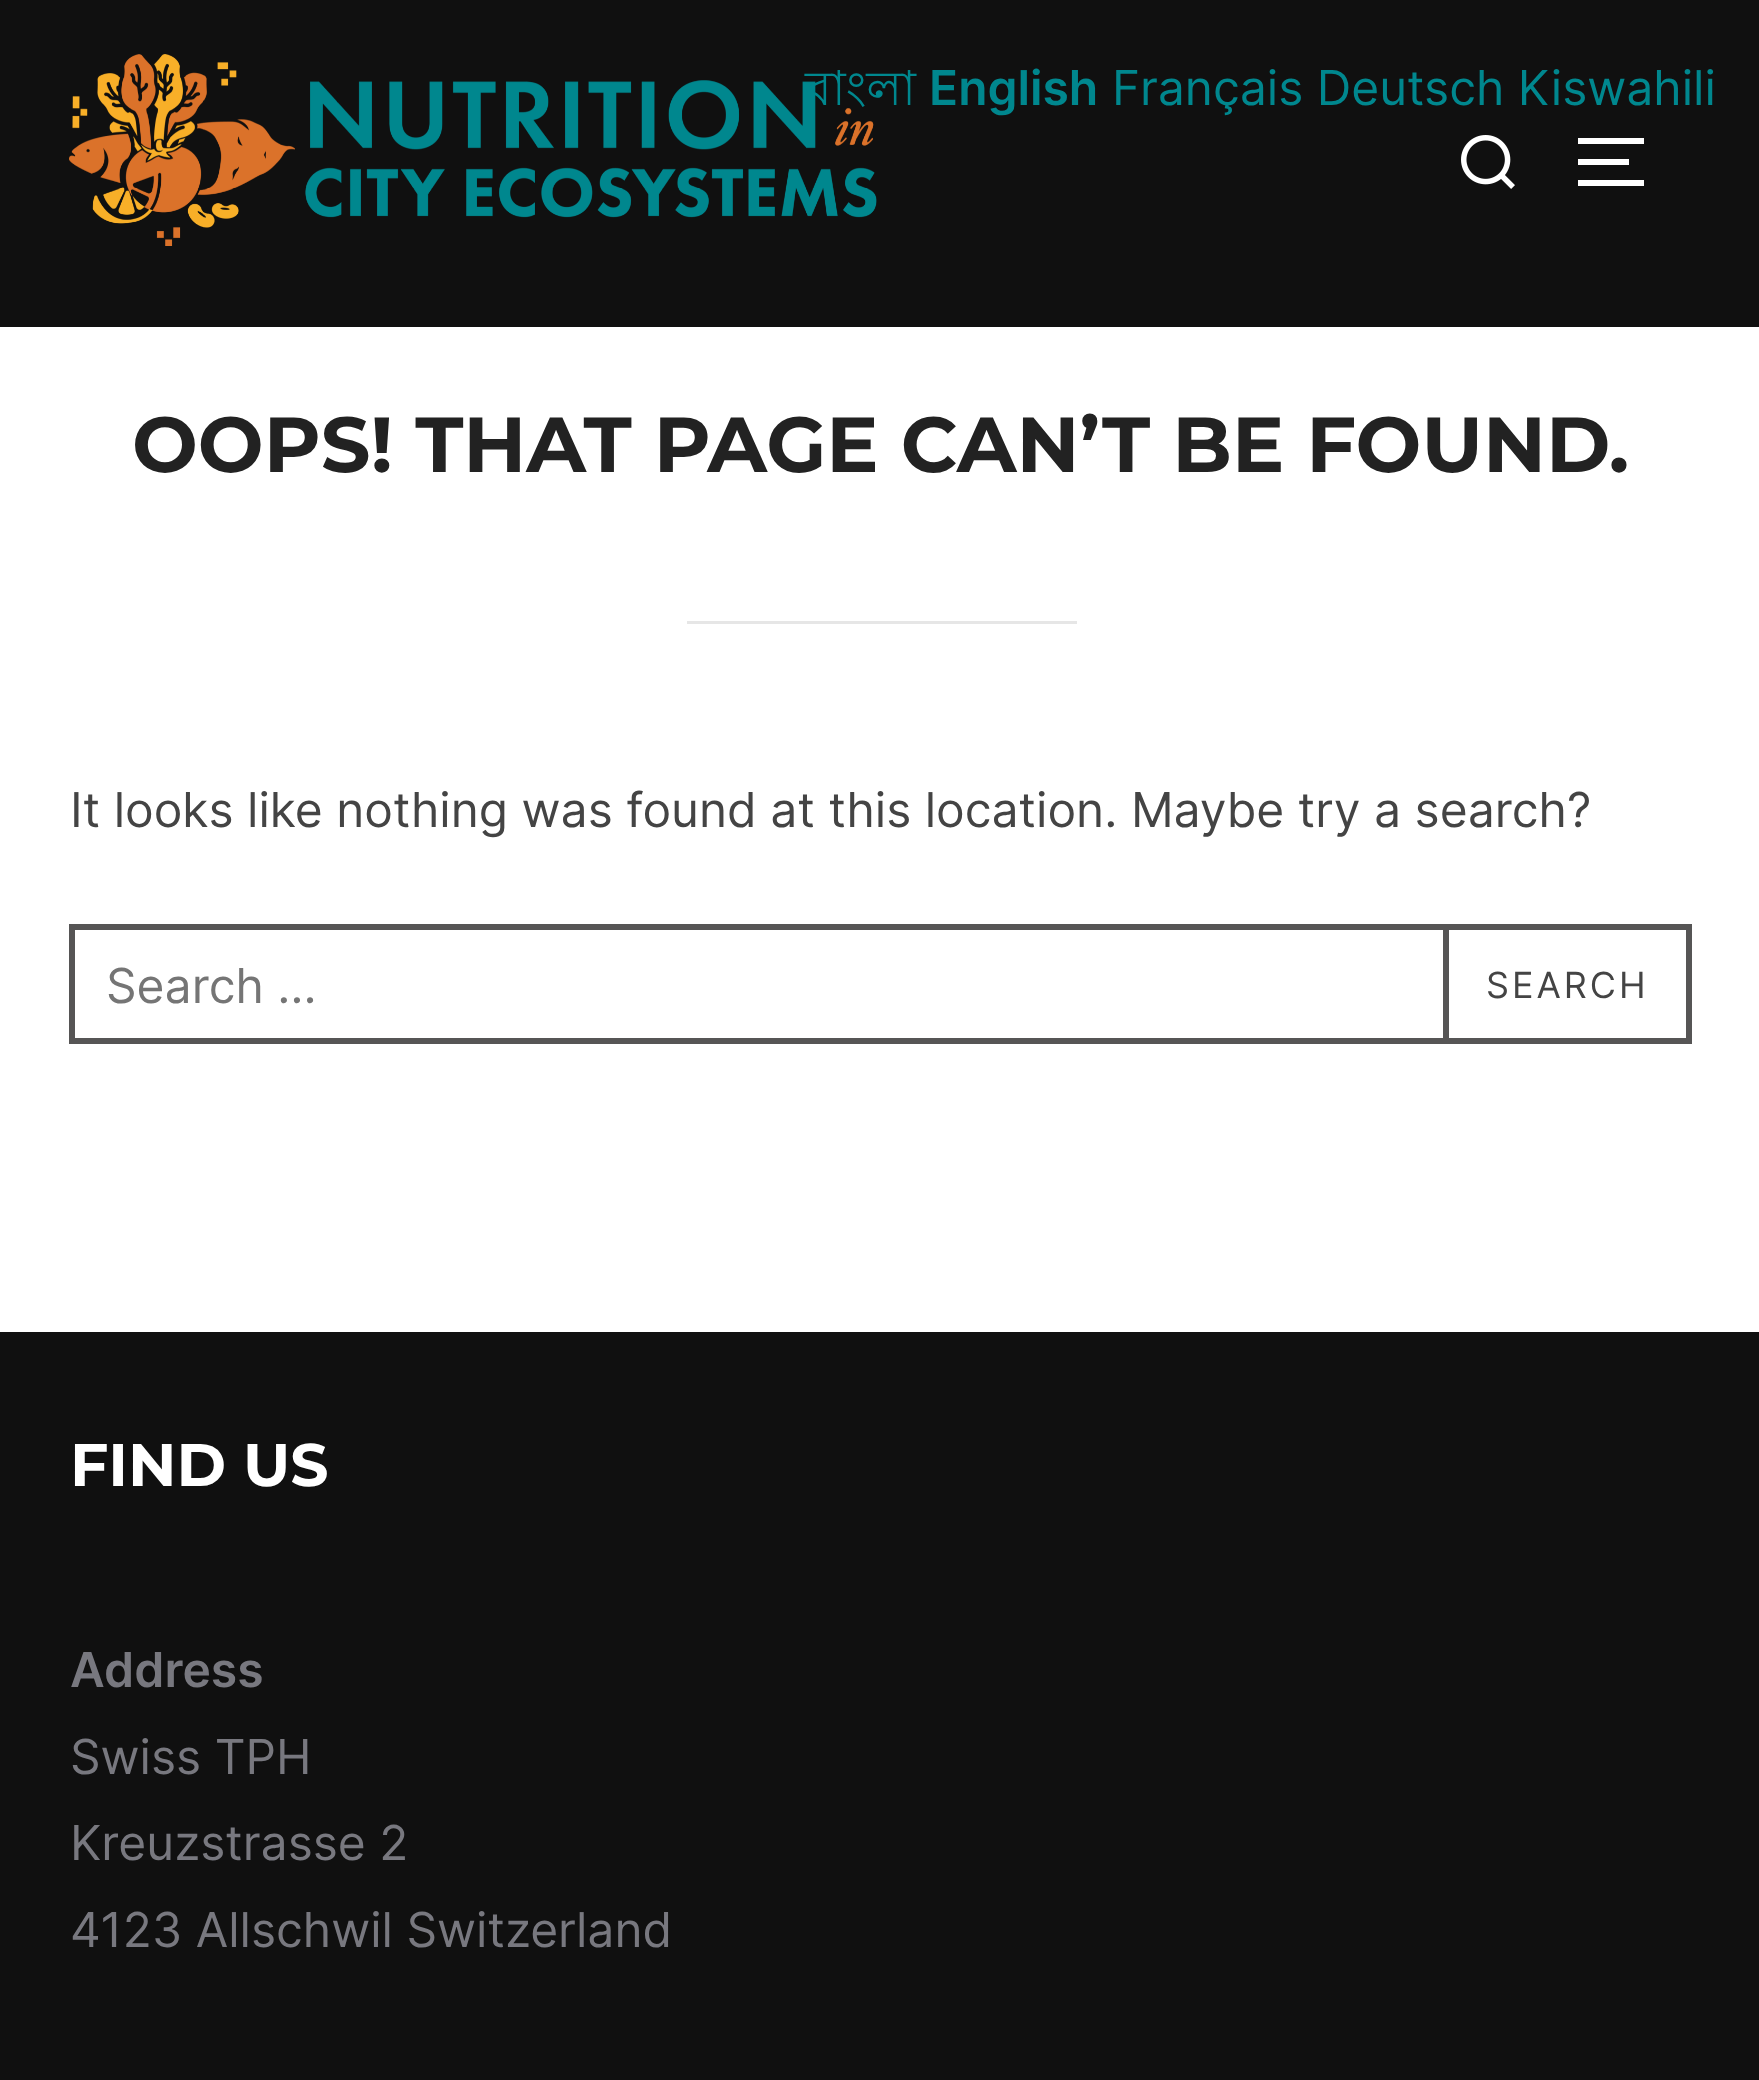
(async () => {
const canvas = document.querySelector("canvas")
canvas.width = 1759
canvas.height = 2080
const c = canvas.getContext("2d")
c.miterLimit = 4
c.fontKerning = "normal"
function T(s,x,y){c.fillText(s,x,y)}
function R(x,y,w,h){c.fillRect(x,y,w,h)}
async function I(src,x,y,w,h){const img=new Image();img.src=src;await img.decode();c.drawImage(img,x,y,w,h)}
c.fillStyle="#fff"
R(0,0,1759,2080)
c.fillStyle="#101010"
R(0,0,1759,327)
await I("1.png",69,54,808,192)
c.font="48px Lohit Bengali"
c.fillStyle="#00878e"
T("বাংলা",805,105)
c.font="600 48px Inter"
T("English",929,105)
c.font="48px Inter"
T("Français Deutsch Kiswahili",1112,105)
await I("2.png",1461,135,54,54)
c.fillStyle="#fff"
R(1578,138,66,6)
R(1578,159,51,6)
R(1578,180,66,6)
c.font="bold 78px Montserrat"
c.fillStyle="#222"
T("OOPS! THAT PAGE CAN’T BE FOUND.",132,472)
c.fillStyle="#e6e6e6"
R(687,621,390,3)
c.font="48px Inter"
c.fillStyle="#444"
T("It looks like nothing was found at this location. Maybe try a search?",70,827)
c.strokeStyle="#565555"
c.lineWidth=6
c.strokeRect(72,927,1617,114)
c.fillStyle="#757575"
T("Search …",106,1003)
c.strokeRect(1446,927,243,114)
c.letterSpacing="3px"
c.font="36px Inter"
c.fillStyle="#444"
T("SEARCH",1486,998)
c.fillStyle="#101010"
R(0,1332,1759,748)
c.letterSpacing="0px"
c.font="bold 60px Montserrat"
c.fillStyle="#fff"
T("FIND US",70,1486)
c.font="600 48px Inter"
c.fillStyle="#78787f"
T("Address",70,1687)
c.font="48px Inter"
T("Swiss TPH",70,1774)
T("Kreuzstrasse 2",70,1860)
T("4123 Allschwil Switzerland",70,1947)
})()
